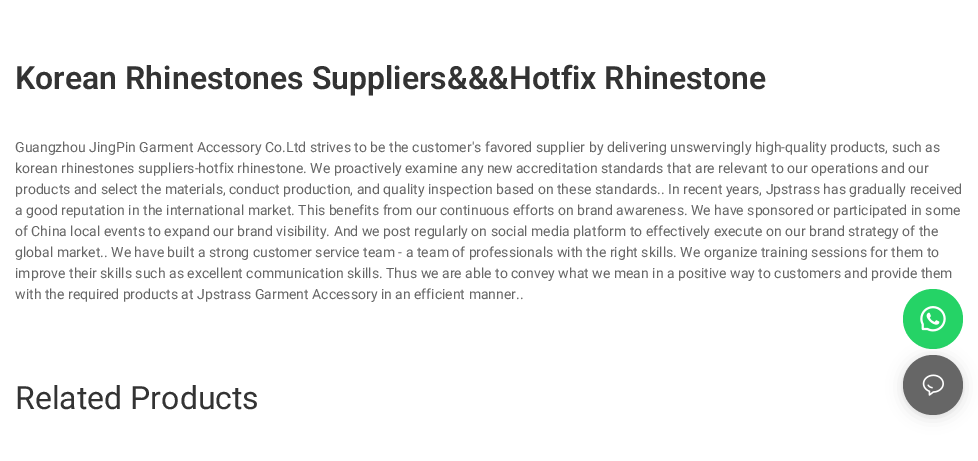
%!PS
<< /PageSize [978 461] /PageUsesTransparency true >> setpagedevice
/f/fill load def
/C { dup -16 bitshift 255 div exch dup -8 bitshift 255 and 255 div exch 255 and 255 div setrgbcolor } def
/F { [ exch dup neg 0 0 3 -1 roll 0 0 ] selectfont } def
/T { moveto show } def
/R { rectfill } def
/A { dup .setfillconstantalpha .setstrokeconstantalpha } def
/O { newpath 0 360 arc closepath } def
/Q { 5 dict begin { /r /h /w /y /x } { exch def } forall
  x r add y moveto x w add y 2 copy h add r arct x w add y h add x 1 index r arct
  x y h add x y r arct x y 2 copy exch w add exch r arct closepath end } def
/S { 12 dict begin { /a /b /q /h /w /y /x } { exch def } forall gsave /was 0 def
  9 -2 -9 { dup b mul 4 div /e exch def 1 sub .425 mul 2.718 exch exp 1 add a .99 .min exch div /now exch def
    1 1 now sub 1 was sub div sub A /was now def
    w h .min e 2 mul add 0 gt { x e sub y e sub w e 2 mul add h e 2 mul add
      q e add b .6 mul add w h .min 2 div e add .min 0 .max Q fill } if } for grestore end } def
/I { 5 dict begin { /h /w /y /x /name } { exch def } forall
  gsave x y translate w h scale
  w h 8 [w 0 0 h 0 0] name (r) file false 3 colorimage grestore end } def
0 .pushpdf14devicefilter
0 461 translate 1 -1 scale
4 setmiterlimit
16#FFFFFF C
0 0 978 461 R
/Roboto-SemiBold 32 F
16#333333 C
(Korean Rhinestones Suppliers&&&Hotfix Rhinestone) 15 89 T
/Roboto-Regular 14 F
16#666666 C
(Guangzhou JingPin Garment Accessory Co.Ltd strives to be the customer's favored supplier by delivering unswervingly high-quality products, such as) 15 152 T
(korean rhinestones suppliers-hotfix rhinestone. We proactively examine any new accreditation standards that are relevant to our operations and our) 15 173 T
(products and select the materials, conduct production, and quality inspection based on these standards.. In recent years, Jpstrass has gradually received) 15 194 T
(a good reputation in the international market. This benefits from our continuous efforts on brand awareness. We have sponsored or participated in some) 15 215 T
(of China local events to expand our brand visibility. And we post regularly on social media platform to effectively execute on our brand strategy of the) 15 236 T
(global market.. We have built a strong customer service team - a team of professionals with the right skills. We organize training sessions for them to) 15 257 T
(improve their skills such as excellent communication skills. Thus we are able to convey what we mean in a positive way to customers and provide them) 15 278 T
(with the required products at Jpstrass Garment Accessory in an efficient manner..) 15 299 T
/Roboto-Regular 32 F
16#333333 C
(Related Products) 15 409 T
16#25D366 C
933 319 30 O f
(1.rgb) 920 306 26 26 I
16#000000 C
903 357 60 60 30 8 .12 S
903 356 60 60 30 2 .06 S
16#666666 C
933 385 30 O f
(2.rgb) 922 374 22 22 I
.poppdf14devicefilter showpage
